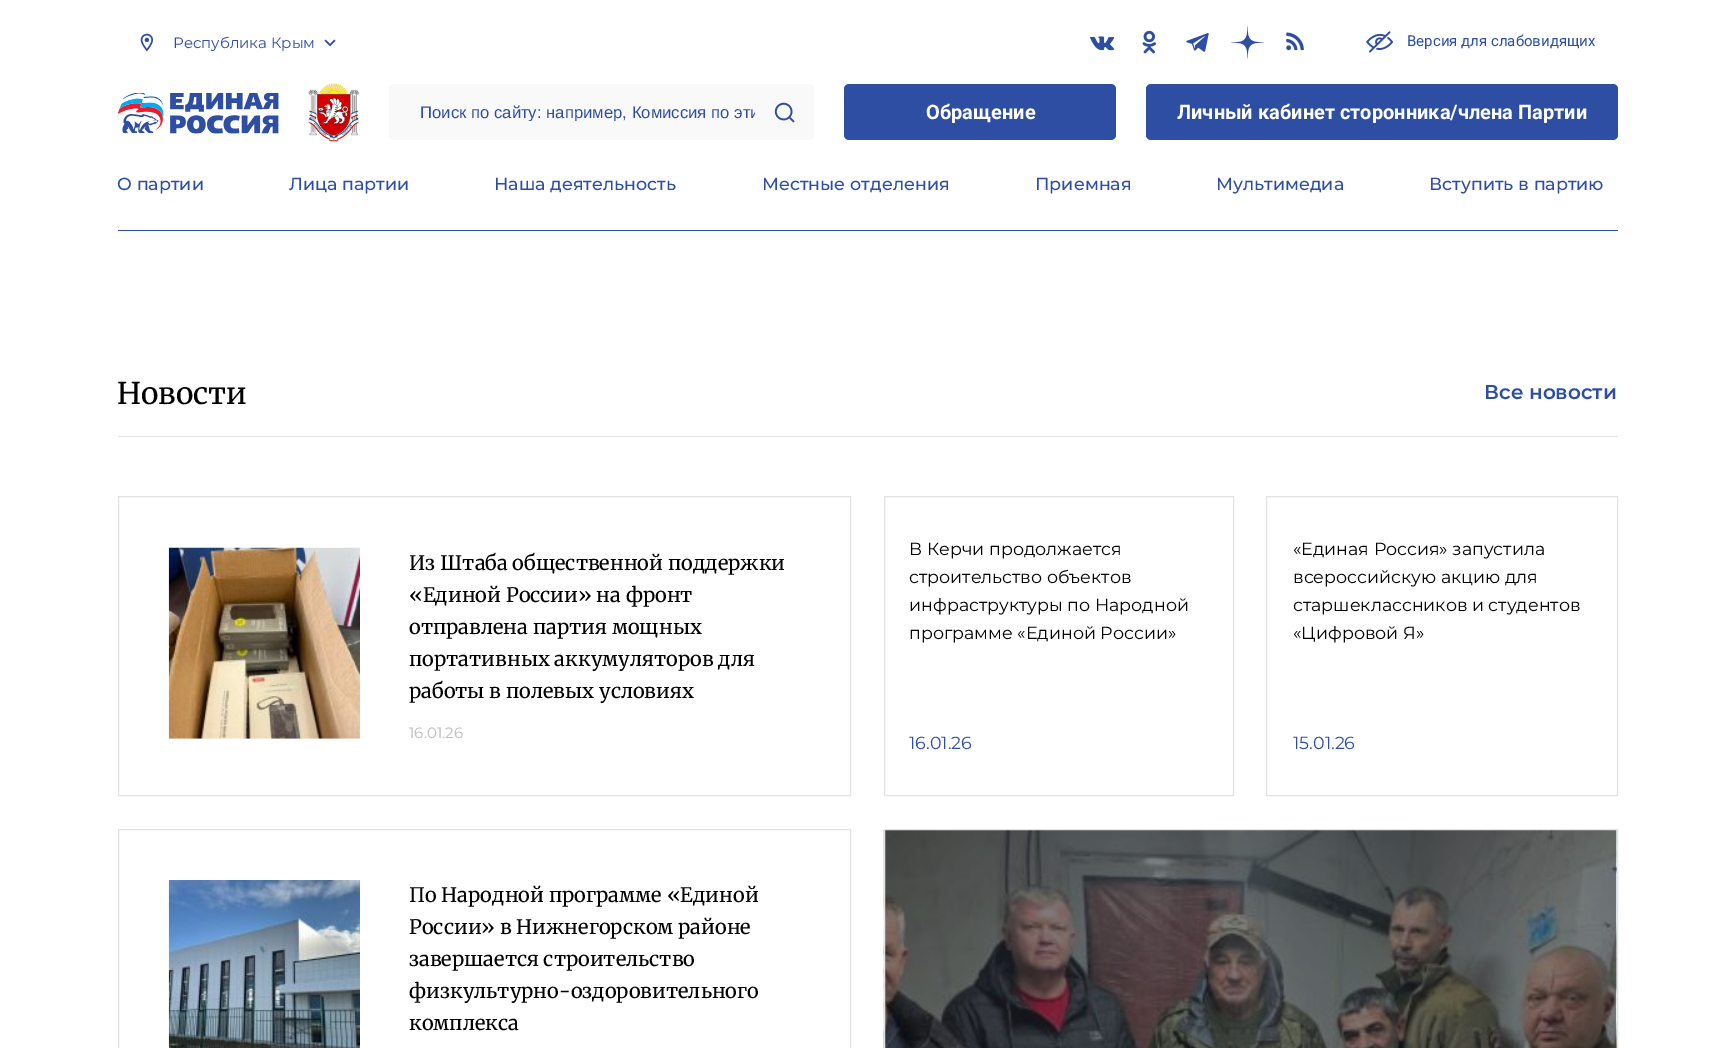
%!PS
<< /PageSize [1733 1048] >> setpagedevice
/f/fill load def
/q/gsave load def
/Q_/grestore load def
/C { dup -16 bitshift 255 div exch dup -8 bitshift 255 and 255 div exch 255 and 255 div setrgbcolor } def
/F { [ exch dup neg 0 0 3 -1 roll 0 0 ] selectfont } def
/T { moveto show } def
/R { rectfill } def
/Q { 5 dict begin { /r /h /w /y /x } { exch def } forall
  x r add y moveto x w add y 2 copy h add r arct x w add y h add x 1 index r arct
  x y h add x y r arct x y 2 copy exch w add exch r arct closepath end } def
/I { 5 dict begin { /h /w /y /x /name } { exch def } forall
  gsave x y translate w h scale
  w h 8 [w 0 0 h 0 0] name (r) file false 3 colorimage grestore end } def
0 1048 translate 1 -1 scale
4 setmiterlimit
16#FFFFFF C
0 0 1733 1048 R
(1.rgb) 140 33 14 19 I
/Montserrat-Regular 15 F
16#2E4EA4 C
(Республика Крым) 173 48 T
(2.rgb) 324 39 12 8 I
(3.rgb) 1090 36 25 15 I
(4.rgb) 1142 30 14 24 I
(5.rgb) 1186 33 23 19 I
(6.rgb) 1231 26 33 33 I
(7.rgb) 1286 32 18 19 I
(8.rgb) 1366 31 28 22 I
/Roboto-Regular 15 F
(Версия для слабовидящих) 1407 46 T
(9.rgb) 118 93 161 41 I
(10.rgb) 308 83 51 59 I
16#F9F9F9 C
389 84 425 56 5 Q f
q
420 103 335 18 rectclip
/LiberationSans-Regular 16.7 F
16#2E4EA4 C
(Поиск по сайту: например, Комиссия по эти) 420 118 T
Q_
(11.rgb) 774 102 21 21 I
16#2E4EA4 C
844 84 272 56 5 Q f
/Roboto-Bold 20 F
16#FFFFFF C
(Обращение) 926 119 T
16#2E4EA4 C
1146 84 472 56 5 Q f
16#FFFFFF C
(Личный кабинет сторонника/члена Партии) 1177 119 T
16#2E4EA4 C
118 230 1500 1 R
/Montserrat-Medium 17.5 F
(О партии) 117 190 T
(Лица партии) 289 190 T
(Наша деятельность) 494 190 T
(Местные отделения) 762 190 T
(Приемная) 1035 190 T
(Мультимедиа) 1216 190 T
(Вступить в партию) 1429 190 T
16#E3E3E3 C
118 436 1500 1 R
/Merriweather-Regular 30 F
16#000000 C
(Новости) 117 404 T
/Montserrat-SemiBold 20 F
16#2E4EA4 C
(Все новости) 1484 399 T
16#E3E3E3 C
118.5 496.5 732 299 rectstroke
(12.rgb) 168 547 192 192 I
/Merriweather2-Regular 20 F
16#000000 C
(Из Штаба общественной поддержки) 409 570 T
(«Единой России» на фронт) 409 602 T
(отправлена партия мощных) 409 634 T
(портативных аккумуляторов для) 409 666 T
(работы в полевых условиях) 409 698 T
/Montserrat-Regular 15 F
16#BDBDBD C
(16.01.26) 409 738 T
16#E3E3E3 C
884.5 496.5 349 299 rectstroke
/Montserrat-Regular 17.5 F
16#000000 C
(В Керчи продолжается) 909 555 T
(строительство объектов) 909 583 T
(инфраструктуры по Народной) 909 611 T
(программе «Единой России») 909 639 T
16#2E4EA4 C
(16.01.26) 909 749 T
16#E3E3E3 C
1266.5 496.5 351 299 rectstroke
16#000000 C
(«Единая Россия» запустила) 1293 555 T
(всероссийскую акцию для) 1293 583 T
(старшеклассников и студентов) 1293 611 T
(«Цифровой Я») 1293 639 T
16#2E4EA4 C
(15.01.26) 1293 749 T
16#E3E3E3 C
118.5 829.5 732 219 rectstroke
(13.rgb) 168 880 192 168 I
/Merriweather2-Regular 20 F
16#000000 C
(По Народной программе «Единой) 409 902 T
(России» в Нижнегорском районе) 409 934 T
(завершается строительство) 409 966 T
(физкультурно-оздоровительного) 409 998 T
(комплекса) 409 1030 T
(14.rgb) 883 830 734 218 I
16#E3E3E3 C
884.5 829.5 733 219 rectstroke
showpage
